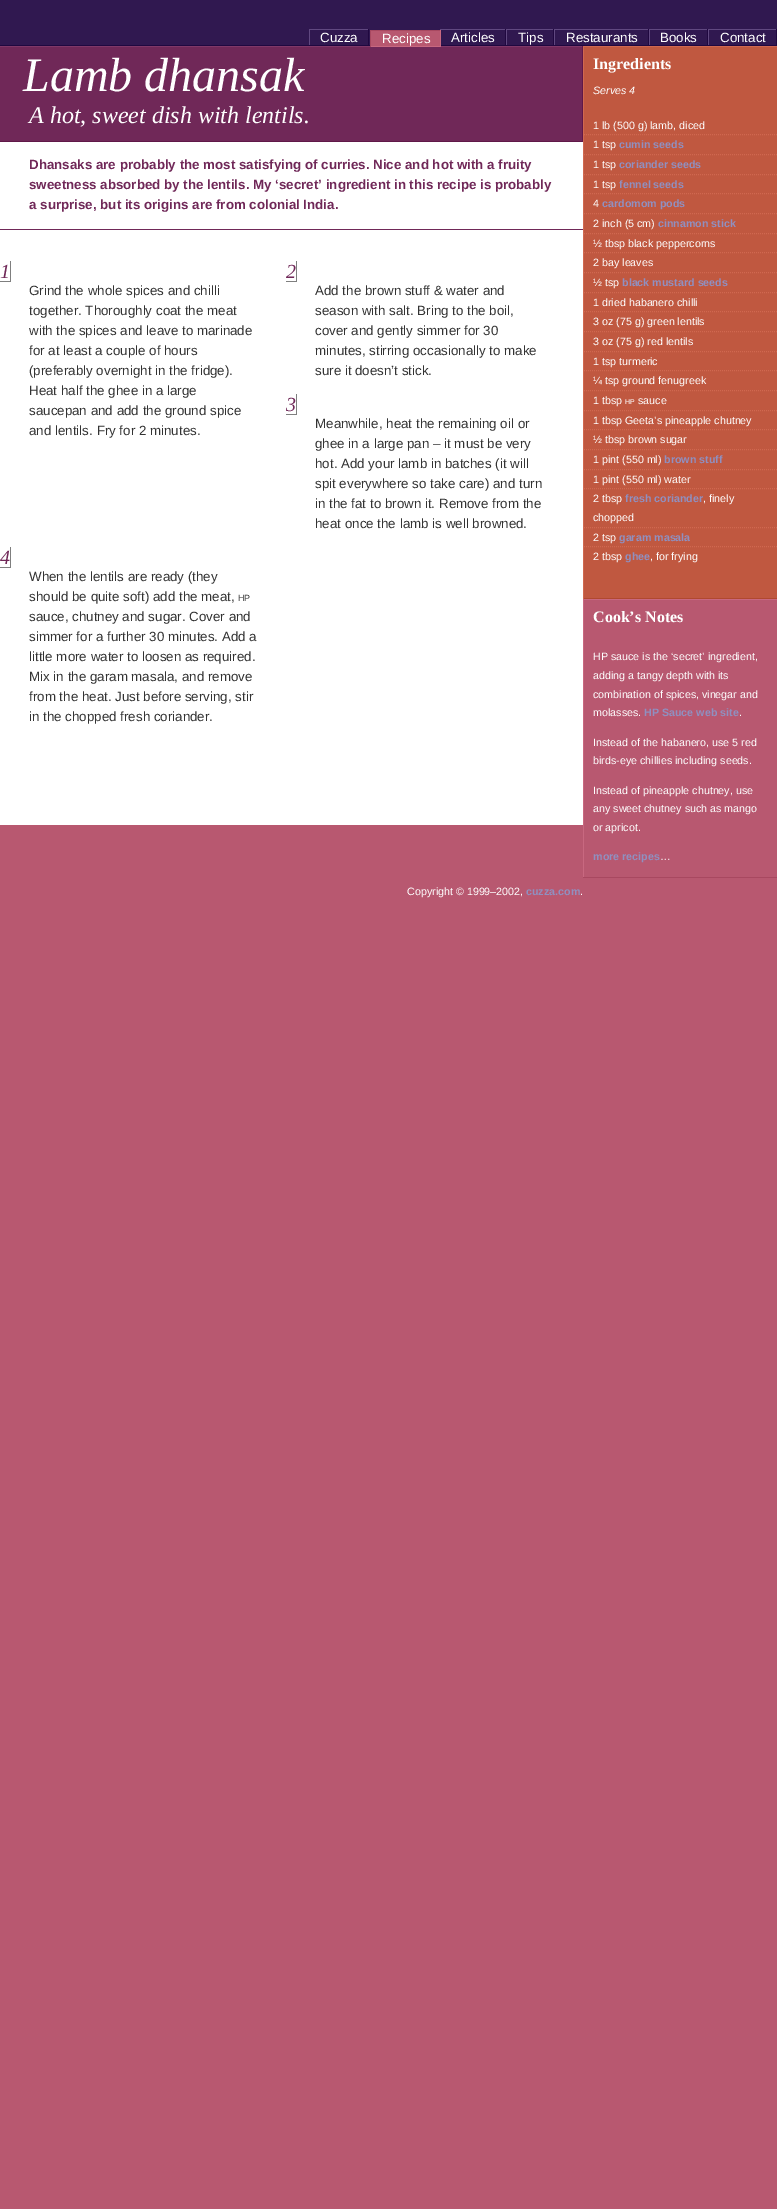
%!PS
<< /PageSize [777 2209] >> setpagedevice
/m/moveto load def
/l/rlineto load def
/s/stroke load def
/C { dup -16 bitshift 255 div exch dup -8 bitshift 255 and 255 div exch 255 and 255 div setrgbcolor } def
/F { [ exch dup neg 0 0 3 -1 roll 0 0 ] selectfont } def
/T { moveto show } def
/R { rectfill } def
0 2209 translate 1 -1 scale
4 setmiterlimit
16#B85870 C
0 0 777 2209 R
16#301850 C
0 0 777 45 R
16#200840 C
0 45 777 1 R
/LiberationSans-Regular 13.35 F
16#FFFFFF C
(Cuzza) 320 42 T
16#604880 C
309 29 60 1 R
16#200840 C
368 29 1 16 R
16#604880 C
309 29 1 16 R
16#B85870 C
371 31 69 15 R
16#FFFFFF C
(Recipes) 382 43 T
16#A84860 C
370 30 71 1 R
16#803868 C
0 46 583 1 R
16#C86880 C
440 30 1 17 R
370 46 71 1 R
16#A84860 C
370 30 1 17 R
16#FFFFFF C
(Articles) 451 42 T
16#604880 C
440 29 337 1 R
16#200840 C
505 29 1 16 R
16#FFFFFF C
(Tips) 518 42 T
16#200840 C
553 29 1 16 R
16#604880 C
506 29 1 16 R
16#FFFFFF C
(Restaurants) 566 42 T
16#200840 C
648 29 1 16 R
16#604880 C
554 29 1 16 R
16#FFFFFF C
(Books) 660 42 T
16#200840 C
707 29 1 16 R
16#604880 C
649 29 1 16 R
16#FFFFFF C
(Contact) 720 42 T
16#200840 C
776 29 1 16 R
16#604880 C
708 29 1 16 R
16#FFFFFF C
0 142 583 683 R
16#702858 C
0 47 582 94 R
16#601848 C
582 46 1 96 R
0 141 583 1 R
/LiberationSerif-Italic 48 F
16#FFFFFF C
(Lamb dhansak) 23 91 T
/LiberationSerif-Italic 24 F
(A hot, sweet dish with lentils.) 29 123 T
16#702858 C
0 229 583 1 R
/LiberationSans-Bold 13.35 F
(Dhansaks are probably the most satisfying of curries. Nice and hot with a fruity) 29 169 T
(sweetness absorbed by the lentils. My ‘secret’ ingredient in this recipe is probably) 29 189 T
(a surprise, but its origins are from colonial India.) 29 209 T
16#7F7F7F C
10 261 1 21 R
0 281 11 1 R
/LiberationSerif-Italic 20 F
16#702858 C
(1) 0 278 T
/LiberationSans-Regular 13.35 F
16#333333 C
(Grind the whole spices and chilli) 29 295 T
(together. Thoroughly coat the meat) 29 315 T
(with the spices and leave to marinade) 29 335 T
(for at least a couple of hours) 29 355 T
(\(preferably overnight in the fridge\).) 29 375 T
(Heat half the ghee in a large) 29 395 T
(saucepan and add the ground spice) 29 415 T
(and lentils. Fry for 2 minutes.) 29 435 T
16#7F7F7F C
296 261 1 21 R
286 281 11 1 R
/LiberationSerif-Italic 20 F
16#702858 C
(2) 286 278 T
/LiberationSans-Regular 13.35 F
16#333333 C
(Add the brown stuff & water and) 315 295 T
(season with salt. Bring to the boil,) 315 315 T
(cover and gently simmer for 30) 315 335 T
(minutes, stirring occasionally to make) 315 355 T
(sure it doesn’t stick.) 315 375 T
16#7F7F7F C
296 394 1 21 R
286 414 11 1 R
/LiberationSerif-Italic 20 F
16#702858 C
(3) 286 411 T
/LiberationSans-Regular 13.35 F
16#333333 C
(Meanwhile, heat the remaining oil or) 315 428 T
(ghee in a large pan – it must be very) 315 448 T
(hot. Add your lamb in batches \(it will) 315 468 T
(spit everywhere so take care\) and turn) 315 488 T
(in the fat to brown it. Remove from the) 315 508 T
(heat once the lamb is well browned.) 315 528 T
16#7F7F7F C
10 547 1 21 R
0 567 11 1 R
/LiberationSerif-Italic 20 F
16#702858 C
(4) 0 564 T
/LiberationSans-Regular 13.35 F
16#333333 C
(When the lentils are ready \(they) 29 581 T
(should be quite soft\) add the meat,) 29 601 T
/LiberationSans-Regular 9 F
(HP) 238 601 T
/LiberationSans-Regular 13.35 F
(sauce, chutney and sugar. Cover and) 29 621 T
(simmer for a further 30 minutes. Add a) 29 641 T
(little more water to loosen as required.) 29 661 T
(Mix in the garam masala, and remove) 29 681 T
(from the heat. Just before serving, stir) 29 701 T
(in the chopped fresh coriander.) 29 721 T
16#C05840 C
584 47 193 551 R
16#D06850 C
583 46 194 1 R
16#B04830 C
583 598 194 1 R
16#D06850 C
583 46 1 553 R
/LiberationSerif-Bold 16 F
16#FFFFFF C
(Ingredients) 593 69 T
/LiberationSans-Italic 10.7 F
(Serves 4) 593 94 T
/LiberationSans-Regular 10.7 F
(1 lb \(500 g\) lamb, diced) 593 129 T
16#D06850 C
[1 1] 0 setdash
584 134.5 m 193 0 l s
16#FFFFFF C
(1 tsp) 593 148 T
/LiberationSans-Bold 10.7 F
16#9090C0 C
(cumin seeds) 619 148 T
16#D06850 C
584 154.5 m 193 0 l s
/LiberationSans-Regular 10.7 F
16#FFFFFF C
(1 tsp) 593 168 T
/LiberationSans-Bold 10.7 F
16#9090C0 C
(coriander seeds) 619 168 T
16#D06850 C
584 174.5 m 193 0 l s
/LiberationSans-Regular 10.7 F
16#FFFFFF C
(1 tsp) 593 188 T
/LiberationSans-Bold 10.7 F
16#9090C0 C
(fennel seeds) 619 188 T
16#D06850 C
584 193.5 m 193 0 l s
/LiberationSans-Regular 10.7 F
16#FFFFFF C
(4) 593 207 T
/LiberationSans-Bold 10.7 F
16#9090C0 C
(cardomom pods) 602 207 T
16#D06850 C
584 213.5 m 193 0 l s
/LiberationSans-Regular 10.7 F
16#FFFFFF C
(2 inch \(5 cm\)) 593 227 T
/LiberationSans-Bold 10.7 F
16#9090C0 C
(cinnamon stick) 658 227 T
16#D06850 C
584 233.5 m 193 0 l s
/LiberationSans-Regular 10.7 F
16#FFFFFF C
(½ tbsp black peppercorns) 593 247 T
16#D06850 C
584 252.5 m 193 0 l s
16#FFFFFF C
(2 bay leaves) 593 266 T
16#D06850 C
584 272.5 m 193 0 l s
16#FFFFFF C
(½ tsp) 593 286 T
/LiberationSans-Bold 10.7 F
16#9090C0 C
(black mustard seeds) 622 286 T
16#D06850 C
584 292.5 m 193 0 l s
/LiberationSans-Regular 10.7 F
16#FFFFFF C
(1 dried habanero chilli) 593 306 T
16#D06850 C
584 311.5 m 193 0 l s
16#FFFFFF C
(3 oz \(75 g\) green lentils) 593 325 T
16#D06850 C
584 331.5 m 193 0 l s
16#FFFFFF C
(3 oz \(75 g\) red lentils) 593 345 T
16#D06850 C
584 351.5 m 193 0 l s
16#FFFFFF C
(1 tsp turmeric) 593 365 T
16#D06850 C
584 370.5 m 193 0 l s
16#FFFFFF C
(¼ tsp ground fenugreek) 593 384 T
16#D06850 C
584 390.5 m 193 0 l s
16#FFFFFF C
(1 tbsp) 593 404 T
/LiberationSans-Regular 7 F
(HP) 625 404 T
/LiberationSans-Regular 10.7 F
(sauce) 638 404 T
16#D06850 C
584 410.5 m 193 0 l s
16#FFFFFF C
(1 tbsp Geeta’s pineapple chutney) 593 424 T
16#D06850 C
584 429.5 m 193 0 l s
16#FFFFFF C
(½ tbsp brown sugar) 593 443 T
16#D06850 C
584 449.5 m 193 0 l s
16#FFFFFF C
(1 pint \(550 ml\)) 593 463 T
/LiberationSans-Bold 10.7 F
16#9090C0 C
(brown stuff) 664 463 T
16#D06850 C
584 469.5 m 193 0 l s
/LiberationSans-Regular 10.7 F
16#FFFFFF C
(1 pint \(550 ml\) water) 593 483 T
16#D06850 C
584 488.5 m 193 0 l s
16#FFFFFF C
(2 tbsp) 593 502 T
/LiberationSans-Bold 10.7 F
16#9090C0 C
(fresh coriander) 625 502 T
/LiberationSans-Regular 10.7 F
16#FFFFFF C
(, finely) 703 502 T
(chopped) 593 521 T
16#D06850 C
584 527.5 m 193 0 l s
16#FFFFFF C
(2 tsp) 593 541 T
/LiberationSans-Bold 10.7 F
16#9090C0 C
(garam masala) 619 541 T
16#D06850 C
584 546.5 m 193 0 l s
/LiberationSans-Regular 10.7 F
16#FFFFFF C
(2 tbsp) 593 560 T
/LiberationSans-Bold 10.7 F
16#9090C0 C
(ghee) 625 560 T
/LiberationSans-Regular 10.7 F
16#FFFFFF C
(, for frying) 650 560 T
16#C86880 C
583 599 194 1 R
583 599 1 278 R
/LiberationSerif-Bold 16 F
16#FFFFFF C
(Cook’s Notes) 593 622 T
/LiberationSans-Regular 10.7 F
(HP sauce is the ‘secret’ ingredient,) 593 660 T
(adding a tangy depth with its) 593 679 T
(combination of spices, vinegar and) 593 698 T
(molasses.) 593 716 T
/LiberationSans-Bold 10.7 F
16#9090C0 C
(HP Sauce web site) 644 716 T
/LiberationSans-Regular 10.7 F
16#FFFFFF C
(.) 739 716 T
(Instead of the habanero, use 5 red) 593 746 T
(birds-eye chillies including seeds.) 593 764 T
(Instead of pineapple chutney, use) 593 794 T
(any sweet chutney such as mango) 593 812 T
(or apricot.) 593 831 T
/LiberationSans-Bold 10.7 F
16#9090C0 C
(more recipes) 593 860 T
/LiberationSans-Regular 10.7 F
16#FFFFFF C
(…) 660 860 T
16#A84860 C
583 877 194 1 R
16#FFFFFF C
(Copyright © 1999–2002,) 407 895 T
/LiberationSans-Bold 10.7 F
16#9090C0 C
(cuzza.com) 526 895 T
/LiberationSans-Regular 10.7 F
16#FFFFFF C
(.) 580 895 T
showpage
